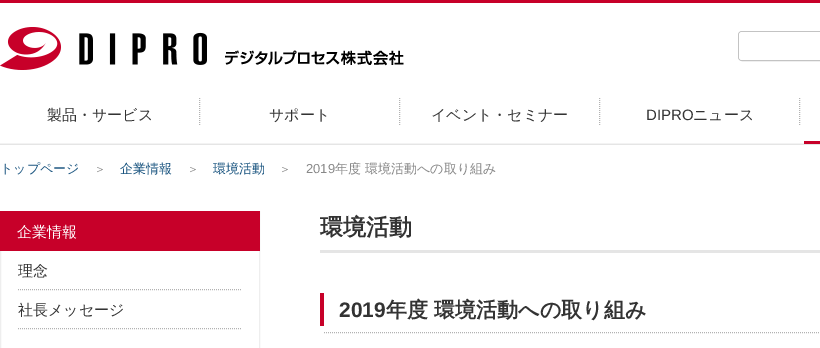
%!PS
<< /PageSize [820 348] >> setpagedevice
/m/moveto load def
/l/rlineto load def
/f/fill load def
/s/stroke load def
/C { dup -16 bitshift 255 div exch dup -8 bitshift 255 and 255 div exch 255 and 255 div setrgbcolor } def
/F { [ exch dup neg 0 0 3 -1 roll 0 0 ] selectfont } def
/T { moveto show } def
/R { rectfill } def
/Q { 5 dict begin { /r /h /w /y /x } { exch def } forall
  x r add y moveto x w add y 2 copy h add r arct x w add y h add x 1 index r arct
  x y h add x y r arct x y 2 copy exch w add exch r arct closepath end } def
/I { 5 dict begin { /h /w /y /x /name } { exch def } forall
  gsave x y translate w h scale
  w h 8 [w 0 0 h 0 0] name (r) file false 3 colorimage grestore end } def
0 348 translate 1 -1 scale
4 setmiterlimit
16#FFFFFF C
0 0 820 348 R
16#C70029 C
0 0 820 3 R
16#E5E5E5 C
0 144 820 1 R
(1.rgb) 0 27 404 43 I
16#C3C3C3 C
738.5 31.5 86 29 3.5 Q s
16#FFFFFF C
739 32 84 28 3 Q f
16#F3F3F3 C
0 143 804 1 R
/WenQuanYiZenHei-Medium 15 F
16#333333 C
(製品・サービス) 47 120 T
16#B2B2B2 C
[1 1] 0 setdash
199.5 98 m 0 28 l s
16#333333 C
(サポート) 269 120 T
16#B2B2B2 C
399.5 98 m 0 28 l s
16#333333 C
(イベント・セミナー) 431 120 T
16#B2B2B2 C
599.5 98 m 0 28 l s
/LiberationSans-Regular 15 F
16#333333 C
(DIPRO) 646 120 T
/WenQuanYiZenHei-Medium 15 F
(ニュース) 693 120 T
16#B2B2B2 C
799.5 98 m 0 28 l s
16#C70029 C
804 141 16 3 R
/WenQuanYiZenHei-Medium 13 F
16#19547F C
(トップページ) 0 173 T
/WenQuanYiZenHei-Medium 12 F
16#888888 C
(＞) 94 173 T
/WenQuanYiZenHei-Medium 13 F
16#19547F C
(企業情報) 120 173 T
/WenQuanYiZenHei-Medium 12 F
16#888888 C
(＞) 187 173 T
/WenQuanYiZenHei-Medium 13 F
16#19547F C
(環境活動) 213 173 T
/WenQuanYiZenHei-Medium 12 F
16#888888 C
(＞) 279 173 T
/LiberationSans-Regular 13 F
(2019) 306 173 T
/WenQuanYiZenHei-Medium 13 F
(年度 環境活動への取り組み) 335 173 T
16#EEEEEE C
[] 0 setdash
.5 211.5 259 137 rectstroke
16#C70029 C
0 211 260 40 R
/WenQuanYiZenHei-Medium 15 F
16#FFFFFF C
(企業情報) 17 237 T
16#333333 C
(理念) 18 276 T
16#B2B2B2 C
[1 1] 0 setdash
18 289.5 m 224 0 l s
16#333333 C
(社長メッセージ) 18 315 T
16#B2B2B2 C
18 328.5 m 224 0 l s
16#E5E5E5 C
320 250 500 3 R
/WenQuanYiZenHei-Bold 23 F
16#333333 C
(環境活動) 320 235 T
16#C70029 C
320 293 4 33 R
/LiberationSans-Bold 21 F
16#333333 C
(2019) 339 317 T
/WenQuanYiZenHei-Bold 21 F
(年度 環境活動への取り組み) 386 317 T
16#B2B2B2 C
324 332.5 m 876 0 l s
showpage
